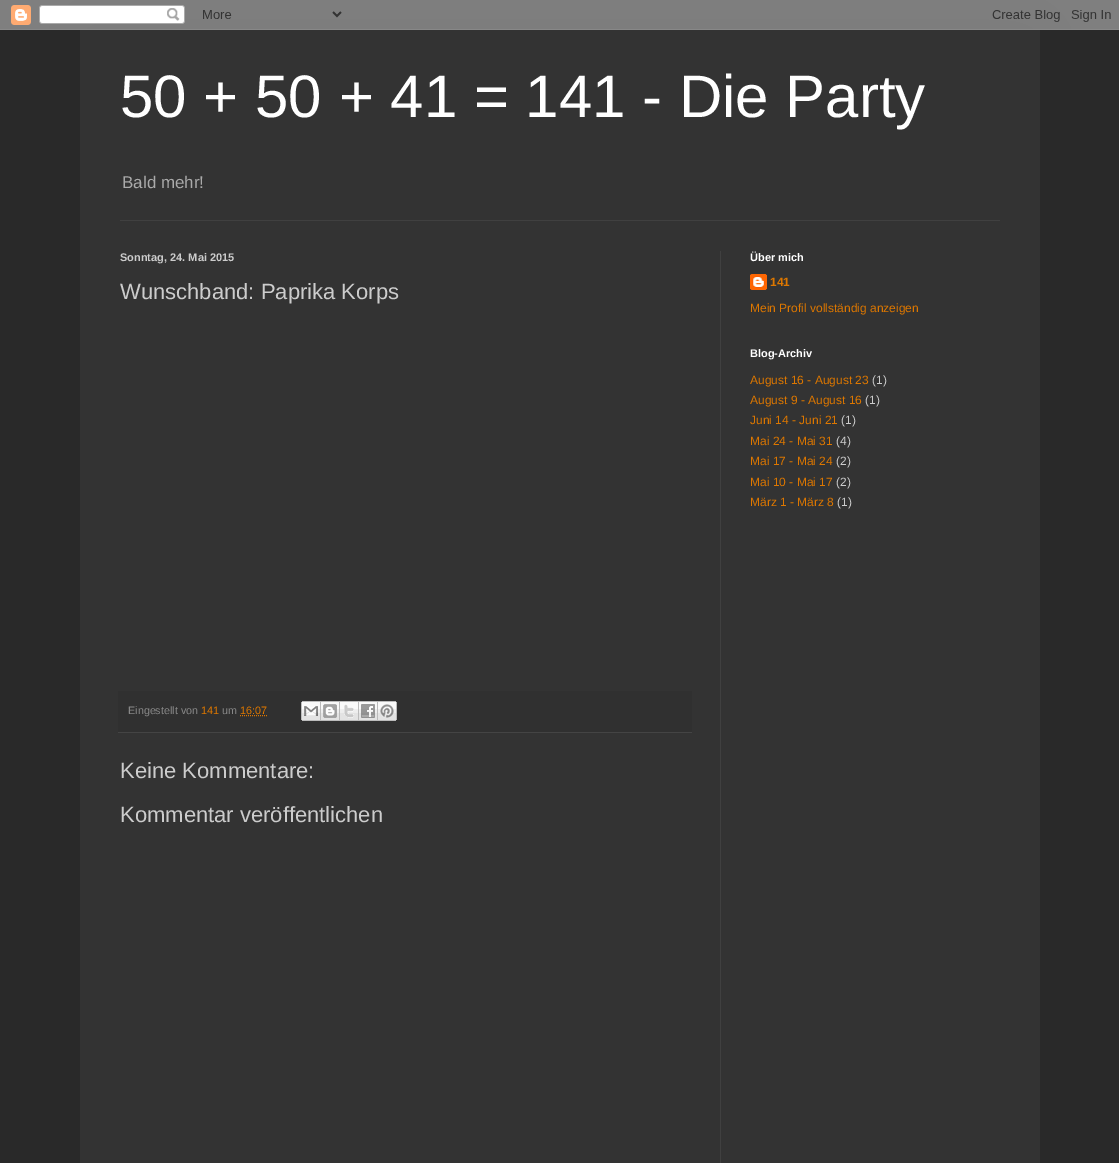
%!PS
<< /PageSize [1119 1163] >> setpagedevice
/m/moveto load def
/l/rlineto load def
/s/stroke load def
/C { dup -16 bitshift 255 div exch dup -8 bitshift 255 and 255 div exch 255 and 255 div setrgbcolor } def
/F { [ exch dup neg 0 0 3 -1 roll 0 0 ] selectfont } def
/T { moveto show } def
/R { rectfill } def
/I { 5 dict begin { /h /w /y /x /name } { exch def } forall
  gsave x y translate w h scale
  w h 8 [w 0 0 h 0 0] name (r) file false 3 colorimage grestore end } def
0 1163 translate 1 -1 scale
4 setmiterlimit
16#292929 C
0 0 1119 1163 R
(1.rgb) 0 0 1119 30 I
16#333333 C
80 30 960 1133 R
/LiberationSans-Regular 60 F
16#FFFFFF C
(50 + 50 + 41 = 141 - Die Party) 120 117 T
/LiberationSans-Regular 17 F
16#AAAAAA C
(Bald mehr!) 122 188 T
16#404040 C
120 220 880 1 R
/LiberationSans-Bold 11 F
16#CCCCCC C
(Sonntag, 24. Mai 2015) 120 261 T
/LiberationSans-Regular 22 F
(Wunschband: Paprika Korps) 120 299 T
16#303030 C
118 691 574 41 R
16#444444 C
118 732 574 1 R
/LiberationSans-Regular 10.75 F
16#888888 C
(Eingestellt von) 128 714 T
16#DD7700 C
(141) 201 714 T
16#888888 C
(um) 222 714 T
16#DD7700 C
(16:07) 240 714 T
[1 1] 0 setdash
240 715.5 m 27 0 l s
(2.rgb) 301 701 20 20 I
(3.rgb) 321 701 19 20 I
(4.rgb) 340 701 19 20 I
(5.rgb) 359 701 19 20 I
(6.rgb) 378 701 19 20 I
/LiberationSans-Regular 22 F
16#CCCCCC C
(Keine Kommentare:) 120 778 T
(Kommentar veröffentlichen) 120 822 T
/LiberationSans-Bold 11 F
16#FFFFFF C
(Über mich) 750 261 T
(7.rgb) 750 274 17 16 I
/LiberationSans-Bold 12 F
16#DD7700 C
(141) 770 286 T
/LiberationSans-Regular 12 F
(Mein Profil vollständig anzeigen) 750 312 T
/LiberationSans-Bold 11 F
16#FFFFFF C
(Blog-Archiv) 750 357 T
/LiberationSans-Regular 12 F
16#DD7700 C
(August 16 - August 23) 750 384 T
16#CCCCCC C
(\(1\)) 872 384 T
16#DD7700 C
(August 9 - August 16) 750 404 T
16#CCCCCC C
(\(1\)) 865 404 T
16#DD7700 C
(Juni 14 - Juni 21) 750 424 T
16#CCCCCC C
(\(1\)) 841 424 T
16#DD7700 C
(Mai 24 - Mai 31) 750 445 T
16#CCCCCC C
(\(4\)) 836 445 T
16#DD7700 C
(Mai 17 - Mai 24) 750 465 T
16#CCCCCC C
(\(2\)) 836 465 T
16#DD7700 C
(Mai 10 - Mai 17) 750 486 T
16#CCCCCC C
(\(2\)) 836 486 T
16#DD7700 C
(März 1 - März 8) 750 506 T
16#CCCCCC C
(\(1\)) 837 506 T
16#404040 C
720 251 1 912 R
showpage
